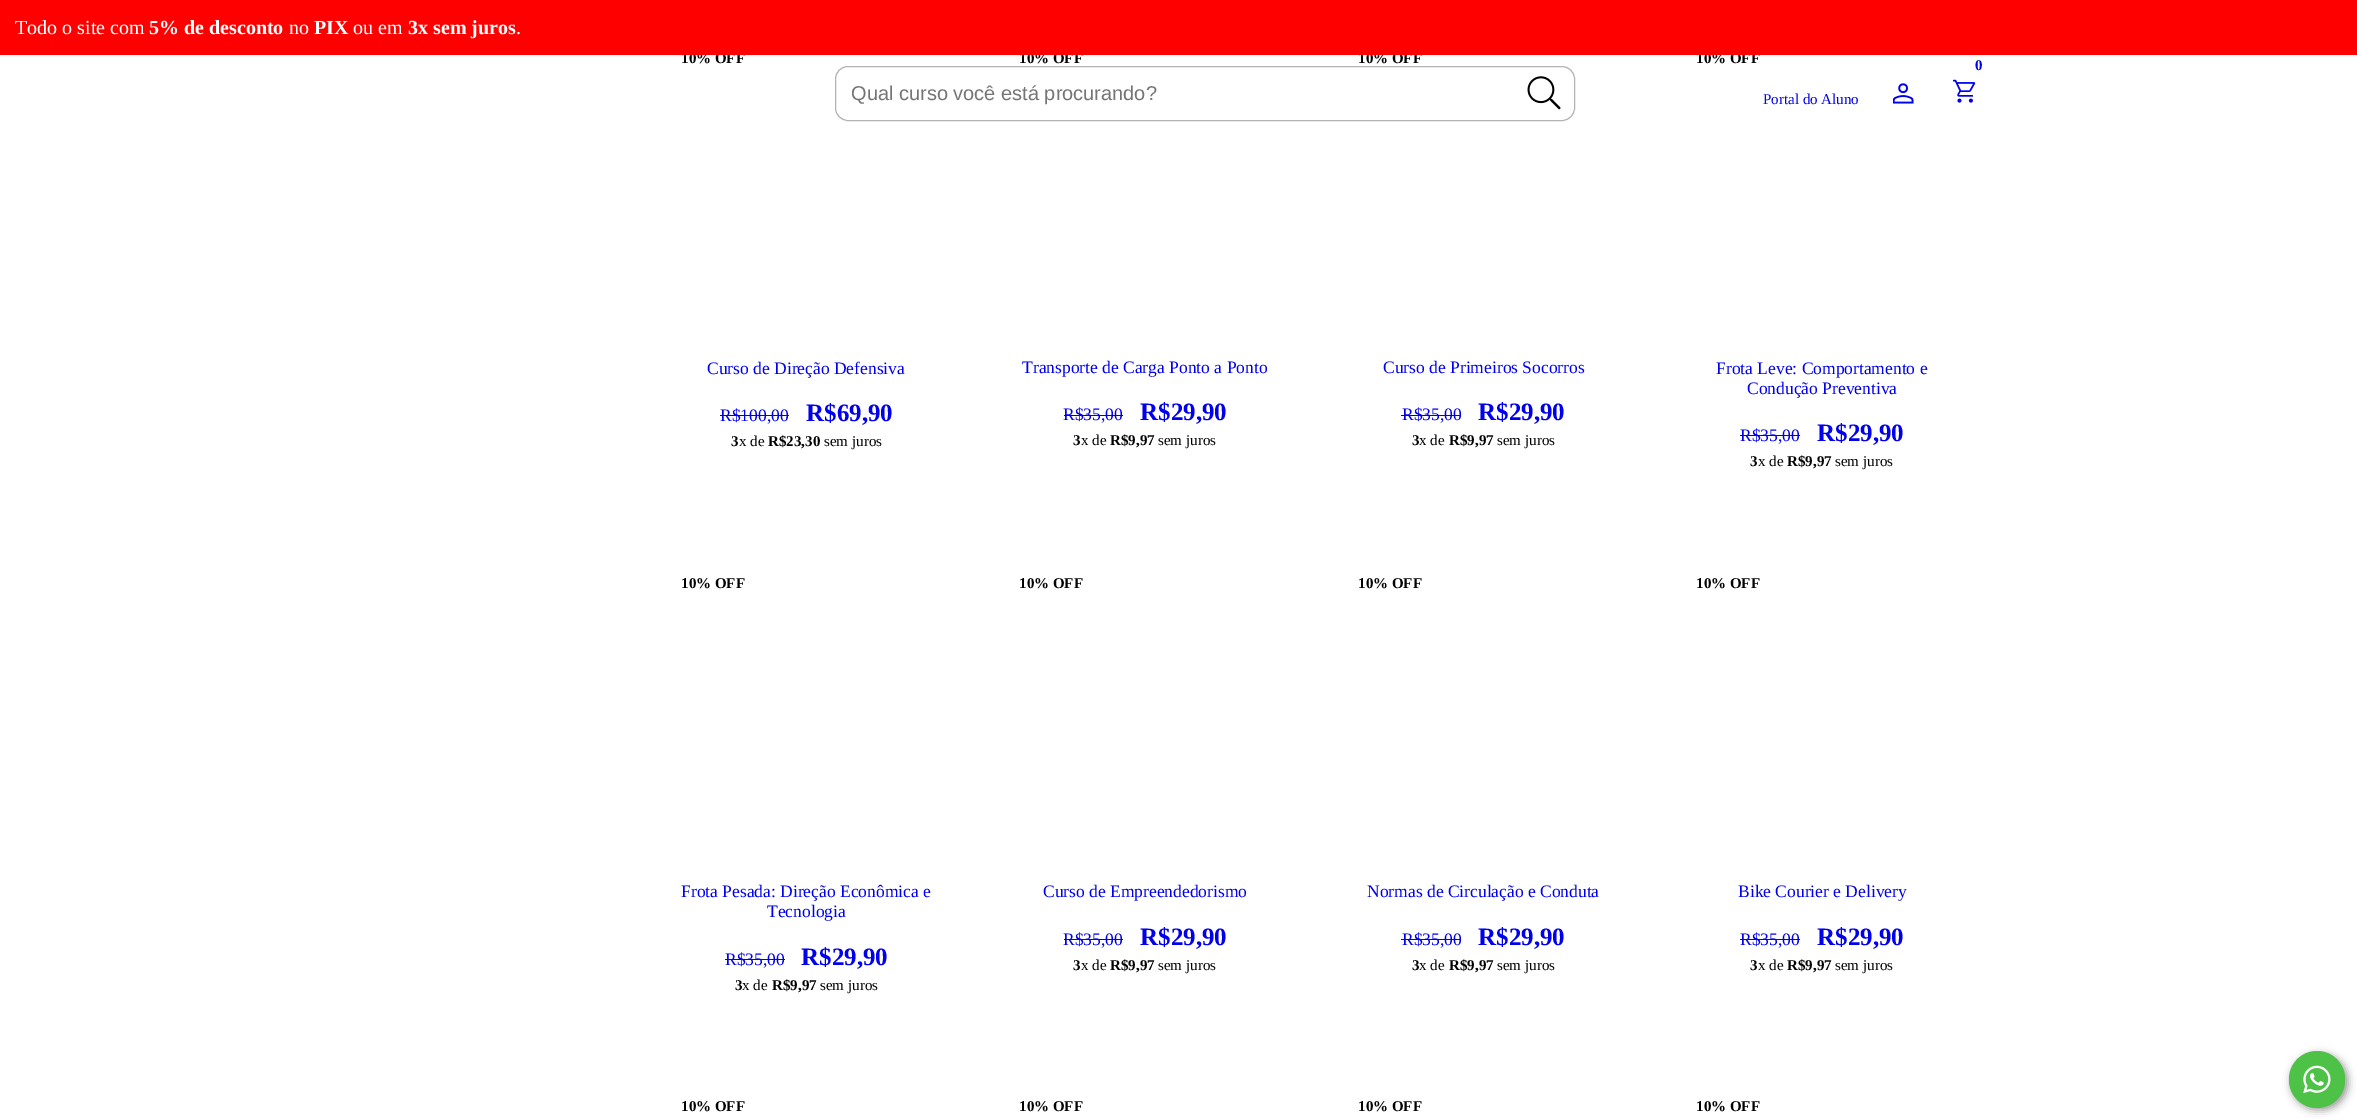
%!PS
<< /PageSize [2357 1119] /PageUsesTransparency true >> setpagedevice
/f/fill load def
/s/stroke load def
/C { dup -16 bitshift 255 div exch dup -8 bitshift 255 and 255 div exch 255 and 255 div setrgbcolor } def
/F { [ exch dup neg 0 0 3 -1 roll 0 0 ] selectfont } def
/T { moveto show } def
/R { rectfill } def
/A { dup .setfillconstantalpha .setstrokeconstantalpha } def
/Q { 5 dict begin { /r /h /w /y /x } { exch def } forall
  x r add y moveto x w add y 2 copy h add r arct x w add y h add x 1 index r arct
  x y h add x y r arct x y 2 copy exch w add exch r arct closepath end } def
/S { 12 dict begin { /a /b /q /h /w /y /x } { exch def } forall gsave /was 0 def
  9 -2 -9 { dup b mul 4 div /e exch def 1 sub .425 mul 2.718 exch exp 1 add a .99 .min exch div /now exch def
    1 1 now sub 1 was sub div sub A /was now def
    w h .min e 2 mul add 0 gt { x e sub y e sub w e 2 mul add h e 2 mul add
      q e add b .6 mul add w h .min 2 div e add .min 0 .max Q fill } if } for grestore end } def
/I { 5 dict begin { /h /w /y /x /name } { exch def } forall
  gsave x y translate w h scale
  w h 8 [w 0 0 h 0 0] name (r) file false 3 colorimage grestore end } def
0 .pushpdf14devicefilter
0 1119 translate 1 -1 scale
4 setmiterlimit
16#FFFFFF C
0 0 2357 1119 R
/LiberationSerif-Bold 15 F
16#000000 C
(10% OFF) 681 63 T
(10% OFF) 1019 63 T
(10% OFF) 1358 63 T
(10% OFF) 1696 63 T
16#FF0000 C
0 0 2357 55 R
/LiberationSerif-Regular 20 F
16#FFFFFF C
(Todo o site com) 15 34 T
/LiberationSerif-Bold 20 F
(5% de desconto) 149 34 T
/LiberationSerif-Regular 20 F
(no) 289 34 T
/LiberationSerif-Bold 20 F
(PIX) 314 34 T
/LiberationSerif-Regular 20 F
(ou em) 353 34 T
/LiberationSerif-Bold 20 F
(3x sem juros) 408 34 T
/LiberationSerif-Regular 20 F
(.) 516 34 T
16#B3B3B3 C
835.5 66.5 739 54 12.5 Q s
/LiberationSans-Regular 20 F
16#757575 C
(Qual curso você está procurando?) 851 100 T
(1.rgb) 1527 76 34 34 I
/LiberationSerif-Bold 15 F
16#0000EE C
(0) 1975 70 T
(2.rgb) 1953 79 23 24 I
/LiberationSerif-Regular 15 F
(Portal do Aluno) 1763 104 T
(3.rgb) 1893 83 21 21 I
/LiberationSerif-Regular 17.5 F
(Curso de Direção Defensiva) 707 374 T
(R$100,00) 720 421 T
720 415 69 1 R
/LiberationSerif-Bold 25 F
(R$69,90) 806 421 T
/LiberationSerif-Bold 15 F
16#000000 C
(3) 731 446 T
/LiberationSerif-Regular 15 F
(x de) 739 446 T
/LiberationSerif-Bold 15 F
(R$23,30) 768 446 T
/LiberationSerif-Regular 15 F
(sem juros) 824 446 T
/LiberationSerif-Regular 17.5 F
16#0000EE C
(Transporte de Carga Ponto a Ponto) 1022 373 T
(R$35,00) 1063 420 T
1064 415 59 1 R
/LiberationSerif-Bold 25 F
(R$29,90) 1140 420 T
/LiberationSerif-Bold 15 F
16#000000 C
(3) 1073 445 T
/LiberationSerif-Regular 15 F
(x de) 1081 445 T
/LiberationSerif-Bold 15 F
(R$9,97) 1110 445 T
/LiberationSerif-Regular 15 F
(sem juros) 1158 445 T
/LiberationSerif-Regular 17.5 F
16#0000EE C
(Curso de Primeiros Socorros) 1383 373 T
(R$35,00) 1402 420 T
1401 415 60 1 R
/LiberationSerif-Bold 25 F
(R$29,90) 1478 420 T
/LiberationSerif-Bold 15 F
16#000000 C
(3) 1412 445 T
/LiberationSerif-Regular 15 F
(x de) 1419 445 T
/LiberationSerif-Bold 15 F
(R$9,97) 1449 445 T
/LiberationSerif-Regular 15 F
(sem juros) 1497 445 T
/LiberationSerif-Regular 17.5 F
16#0000EE C
(Frota Leve: Comportamento e) 1716 374 T
(Condução Preventiva) 1747 394 T
(R$35,00) 1740 441 T
1740 435 60 1 R
/LiberationSerif-Bold 25 F
(R$29,90) 1817 441 T
/LiberationSerif-Bold 15 F
16#000000 C
(3) 1750 466 T
/LiberationSerif-Regular 15 F
(x de) 1758 466 T
/LiberationSerif-Bold 15 F
(R$9,97) 1787 466 T
/LiberationSerif-Regular 15 F
(sem juros) 1835 466 T
/LiberationSerif-Bold 15 F
(10% OFF) 681 588 T
/LiberationSerif-Regular 17.5 F
16#0000EE C
(Frota Pesada: Direção Econômica e) 681 897 T
(Tecnologia) 767 917 T
(R$35,00) 725 965 T
725 959 60 1 R
/LiberationSerif-Bold 25 F
(R$29,90) 801 965 T
/LiberationSerif-Bold 15 F
16#000000 C
(3) 735 990 T
/LiberationSerif-Regular 15 F
(x de) 742 990 T
/LiberationSerif-Bold 15 F
(R$9,97) 772 990 T
/LiberationSerif-Regular 15 F
(sem juros) 820 990 T
/LiberationSerif-Bold 15 F
(10% OFF) 1019 588 T
/LiberationSerif-Regular 17.5 F
16#0000EE C
(Curso de Empreendedorismo) 1043 897 T
(R$35,00) 1063 945 T
1064 939 59 1 R
/LiberationSerif-Bold 25 F
(R$29,90) 1140 945 T
/LiberationSerif-Bold 15 F
16#000000 C
(3) 1073 970 T
/LiberationSerif-Regular 15 F
(x de) 1081 970 T
/LiberationSerif-Bold 15 F
(R$9,97) 1110 970 T
/LiberationSerif-Regular 15 F
(sem juros) 1158 970 T
/LiberationSerif-Bold 15 F
(10% OFF) 1358 588 T
/LiberationSerif-Regular 17.5 F
16#0000EE C
(Normas de Circulação e Conduta) 1367 897 T
(R$35,00) 1402 945 T
1401 939 60 1 R
/LiberationSerif-Bold 25 F
(R$29,90) 1478 945 T
/LiberationSerif-Bold 15 F
16#000000 C
(3) 1412 970 T
/LiberationSerif-Regular 15 F
(x de) 1419 970 T
/LiberationSerif-Bold 15 F
(R$9,97) 1449 970 T
/LiberationSerif-Regular 15 F
(sem juros) 1497 970 T
/LiberationSerif-Bold 15 F
(10% OFF) 1696 588 T
/LiberationSerif-Regular 17.5 F
16#0000EE C
(Bike Courier e Delivery) 1738 897 T
(R$35,00) 1740 945 T
1740 939 60 1 R
/LiberationSerif-Bold 25 F
(R$29,90) 1817 945 T
/LiberationSerif-Bold 15 F
16#000000 C
(3) 1750 970 T
/LiberationSerif-Regular 15 F
(x de) 1758 970 T
/LiberationSerif-Bold 15 F
(R$9,97) 1787 970 T
/LiberationSerif-Regular 15 F
(sem juros) 1835 970 T
/LiberationSerif-Bold 15 F
(10% OFF) 681 1111 T
(10% OFF) 1019 1111 T
(10% OFF) 1358 1111 T
(10% OFF) 1696 1111 T
2291 1054 57 56 28 4 .4 S
16#4DC247 C
2289 1051 56 57 28 Q f
(4.rgb) 2303 1065 28 28 I
.poppdf14devicefilter showpage
